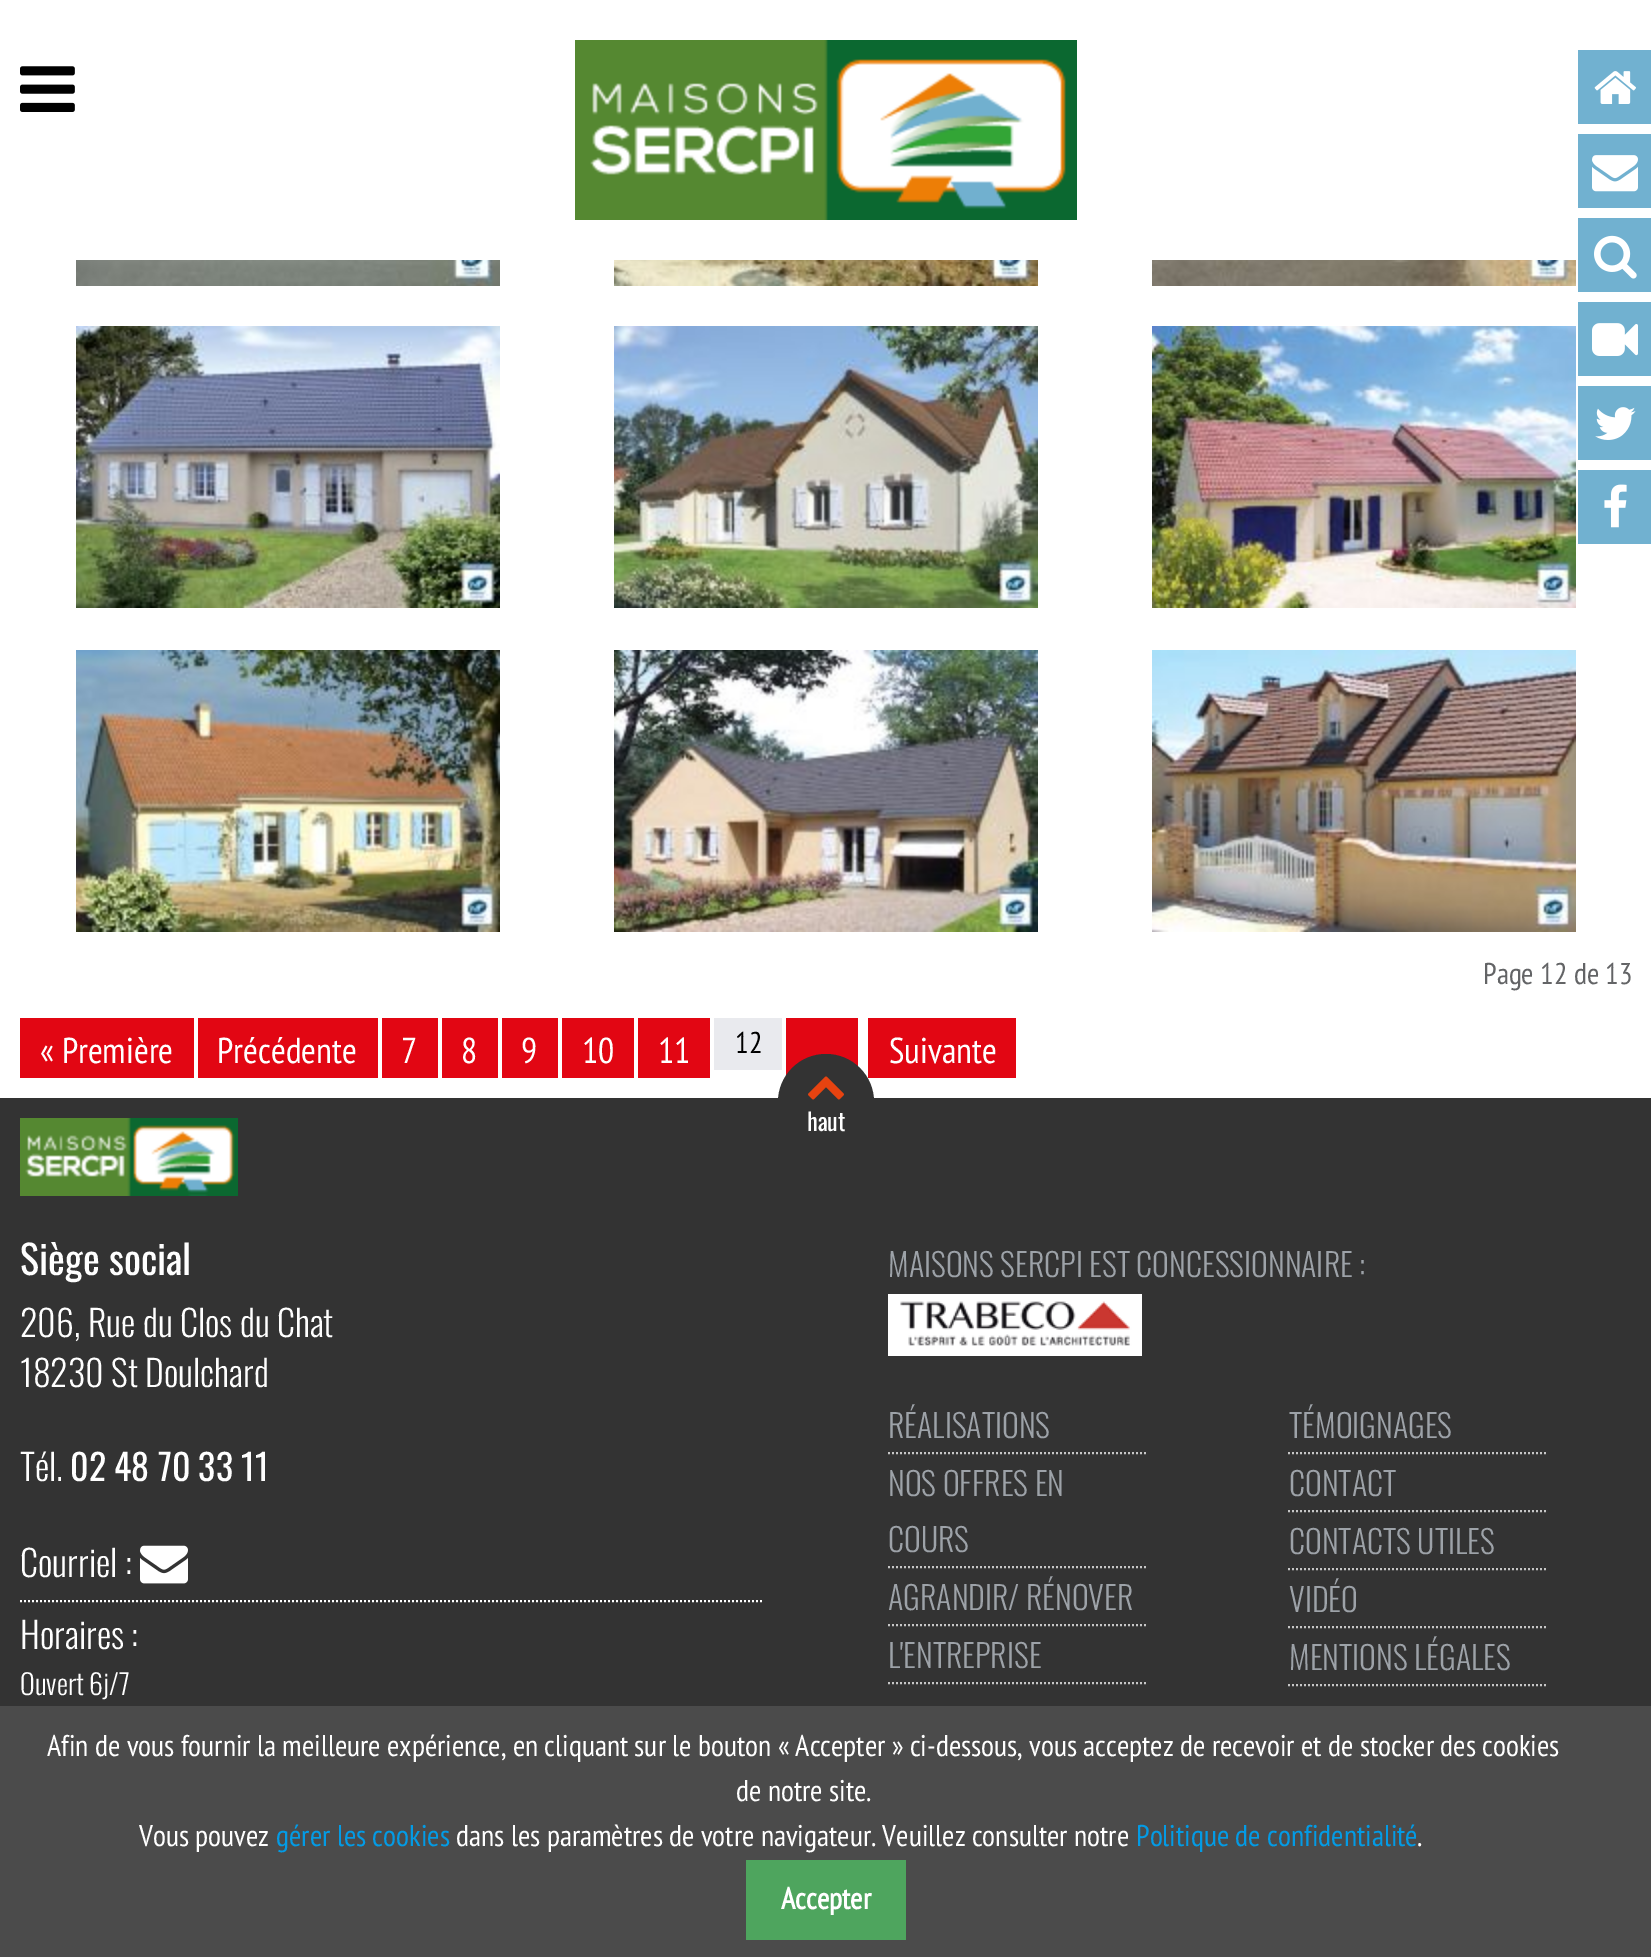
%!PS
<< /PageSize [1651 1957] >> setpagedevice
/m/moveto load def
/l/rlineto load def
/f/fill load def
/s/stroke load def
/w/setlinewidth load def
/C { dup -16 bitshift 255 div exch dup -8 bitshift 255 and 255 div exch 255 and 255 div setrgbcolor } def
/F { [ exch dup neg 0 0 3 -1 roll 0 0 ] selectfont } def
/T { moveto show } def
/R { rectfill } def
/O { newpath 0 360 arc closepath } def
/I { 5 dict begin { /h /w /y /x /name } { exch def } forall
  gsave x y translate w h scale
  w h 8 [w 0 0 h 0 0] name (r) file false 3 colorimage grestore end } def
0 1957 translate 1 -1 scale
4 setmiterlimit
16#FFFFFF C
0 0 1651 1957 R
16#71B1D0 C
1578 50 73 74 R
(1.rgb) 1594 71 42 33 I
1578 134 73 74 R
(2.rgb) 1592 155 46 37 I
1578 218 73 74 R
(3.rgb) 1594 235 43 44 I
1578 302 73 74 R
(4.rgb) 1592 323 46 33 I
1578 386 73 74 R
(5.rgb) 1595 407 41 33 I
1578 470 73 74 R
(6.rgb) 1604 484 23 44 I
(7.rgb) 20 66 55 46 I
(8.rgb) 575 40 502 180 I
(9.rgb) 76 260 424 26 I
(10.rgb) 614 260 424 26 I
(11.rgb) 1152 260 424 26 I
(12.rgb) 76 326 424 282 I
(13.rgb) 614 326 424 282 I
(14.rgb) 1152 326 424 282 I
(15.rgb) 76 650 424 282 I
(16.rgb) 614 650 424 282 I
(17.rgb) 1152 650 424 282 I
/PTSansNarrow-Regular 30 F
16#636466 C
(Page 12 de 13) 1483 984 T
16#E20613 C
20 1018 174 60 R
/PTSansNarrow-Regular 36 F
16#FFFFFF C
(« Première) 40 1063 T
16#E20613 C
198 1018 180 60 R
16#FFFFFF C
(Précédente) 217 1063 T
16#E20613 C
382 1018 56 60 R
16#FFFFFF C
(7) 401 1063 T
16#E20613 C
442 1018 56 60 R
16#FFFFFF C
(8) 461 1063 T
16#E20613 C
502 1018 56 60 R
16#FFFFFF C
(9) 521 1063 T
16#E20613 C
562 1018 72 60 R
16#FFFFFF C
(10) 582 1063 T
16#E20613 C
638 1018 72 60 R
16#FFFFFF C
(11) 658 1063 T
16#E9EAEE C
714 1018 68 52 R
/PTSansNarrow-Regular 30 F
16#000000 C
(12) 735 1053 T
16#E20613 C
786 1018 72 58 R
868 1018 148 60 R
/PTSansNarrow-Regular 36 F
16#FFFFFF C
(Suivante) 889 1063 T
16#333333 C
0 1098 1651 608 R
(18.rgb) 20 1118 218 78 I
826 1102 48 O f
(19.rgb) 808 1076 36 24 I
/Oswald-Regular 24 F
16#FFFFFF C
(haut) 807 1131 T
/Oswald-Regular 40 F
(Siège social) 20 1275 T
/Oswald-Light 36 F
(206, Rue du Clos du Chat) 20 1337 T
(18230 St Doulchard) 20 1387 T
(Tél.) 20 1481 T
/Oswald-Regular 36 F
(02 48 70 33 11) 70 1481 T
/Oswald-Light 36 F
(Courriel :) 20 1577 T
(20.rgb) 140 1545 48 39 I
2 w
[2 2] 0 setdash
20 1601 m 744 0 l s
(Horaires :) 20 1649 T
/Oswald-Light 28 F
(Ouvert 6j/7) 20 1695 T
/Oswald-Light 32 F
16#9DA2A8 C
(MAISONS SERCPI EST CONCESSIONNAIRE :) 888 1277 T
(21.rgb) 888 1294 254 62 I
16#C6C6C6 C
888 1453 m 258 0 l s
16#9DA2A8 C
(RÉALISATIONS) 888 1438 T
16#C6C6C6 C
888 1567 m 258 0 l s
16#9DA2A8 C
(NOS OFFRES EN) 888 1496 T
(COURS) 888 1552 T
16#C6C6C6 C
888 1625 m 258 0 l s
16#9DA2A8 C
(AGRANDIR/ RÉNOVER) 888 1610 T
16#C6C6C6 C
888 1683 m 258 0 l s
16#9DA2A8 C
(L'ENTREPRISE) 888 1668 T
16#C6C6C6 C
1288 1453 m 258 0 l s
16#9DA2A8 C
(TÉMOIGNAGES) 1289 1438 T
16#C6C6C6 C
1288 1511 m 258 0 l s
16#9DA2A8 C
(CONTACT) 1289 1496 T
16#C6C6C6 C
1288 1569 m 258 0 l s
16#9DA2A8 C
(CONTACTS UTILES) 1289 1554 T
16#C6C6C6 C
1288 1627 m 258 0 l s
16#9DA2A8 C
(VIDÉO) 1289 1612 T
16#C6C6C6 C
1288 1685 m 258 0 l s
16#9DA2A8 C
(MENTIONS LÉGALES) 1289 1670 T
16#4B4B4B C
0 1706 1651 251 R
/PTSansNarrow-Regular 30 F
16#FFFFFF C
(Afin de vous fournir la meilleure expérience, en cliquant sur le bouton « Accepter » ci-dessous, vous acceptez de recevoir et de stocker des cookies) 47 1756 T
(de notre site.) 736 1801 T
(Vous pouvez) 139 1846 T
16#039BE5 C
(gérer les cookies) 276 1846 T
16#FFFFFF C
(dans les paramètres de votre navigateur. Veuillez consulter notre) 456 1846 T
16#039BE5 C
(Politique de confidentialité) 1136 1846 T
16#FFFFFF C
(.) 1417 1846 T
16#4EA55E C
746 1860 160 80 R
/PTSansNarrow-Bold 30 F
16#FFFFFF C
(Accepter) 781 1909 T
showpage
